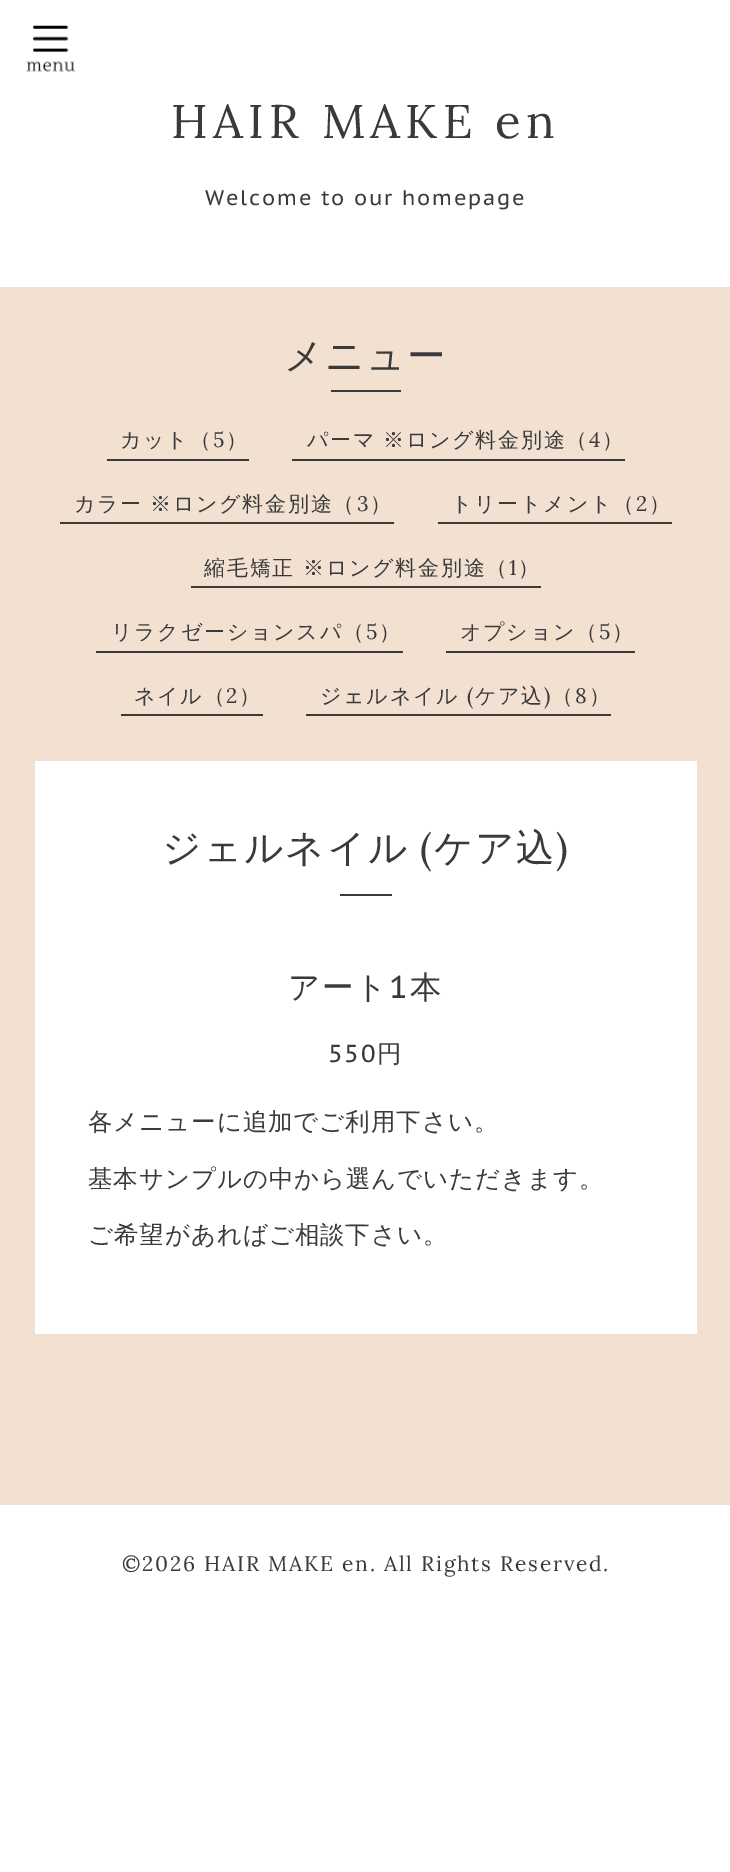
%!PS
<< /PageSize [730 1872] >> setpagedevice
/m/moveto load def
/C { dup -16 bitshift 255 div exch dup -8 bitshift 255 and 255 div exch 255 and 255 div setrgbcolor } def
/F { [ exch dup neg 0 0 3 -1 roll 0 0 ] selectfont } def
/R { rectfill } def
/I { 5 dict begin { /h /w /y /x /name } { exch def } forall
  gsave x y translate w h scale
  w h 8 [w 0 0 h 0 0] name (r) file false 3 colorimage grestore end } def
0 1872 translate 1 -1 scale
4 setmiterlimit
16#FFFFFF C
0 0 730 1872 R
(1.rgb) 26 25 50 47 I
/Lora-Regular 47.25 F
16#3A3A3A C
171 138 m 5.25 0 (HAIR MAKE en) ashow
/PTSansCaption-Regular 21 F
205 205 m 1.75 0 (Welcome to our homepage) ashow
16#F2E1D1 C
0 287 730 1218 R
/WenQuanYiZenHei-Medium 38.5 F
16#3A3A3A C
284 369 m 1.75 0 (メニュー) ashow
331 390 70 2 R
107 459 142 2 R
/WenQuanYiZenHei-Medium 21 F
120 447 m 1.75 0 (カット（) ashow
/Lora-Regular 21 F
213 447 m 1.75 0 (5) ashow
/WenQuanYiZenHei-Medium 21 F
226 447 m 1.75 0 (）) ashow
292 459 333 2 R
307 447 m 1.75 0 (パーマ) ashow
383 447 m 1.75 0 (※ロング料金別途（) ashow
/Lora-Regular 21 F
589 447 m 1.75 0 (4) ashow
/WenQuanYiZenHei-Medium 21 F
602 447 m 1.75 0 (）) ashow
60 522 334 2 R
74 511 m 1.75 0 (カラー) ashow
150 511 m 1.75 0 (※ロング料金別途（) ashow
/Lora-Regular 21 F
357 511 m 1.75 0 (3) ashow
/WenQuanYiZenHei-Medium 21 F
370 511 m 1.75 0 (）) ashow
438 522 234 2 R
451 511 m 1.75 0 (トリートメント（) ashow
/Lora-Regular 21 F
636 511 m 1.75 0 (2) ashow
/WenQuanYiZenHei-Medium 21 F
649 511 m 1.75 0 (）) ashow
191 586 350 2 R
204 575 m 1.75 0 (縮毛矯正) ashow
303 575 m 1.75 0 (※ロング料金別途（) ashow
/Lora-Regular 21 F
509 575 m 1.75 0 (1) ashow
/WenQuanYiZenHei-Medium 21 F
518 575 m 1.75 0 (）) ashow
96 651 307 2 R
111 639 m 1.75 0 (リラクゼーションスパ（) ashow
/Lora-Regular 21 F
366 639 m 1.75 0 (5) ashow
/WenQuanYiZenHei-Medium 21 F
379 639 m 1.75 0 (）) ashow
446 651 189 2 R
460 639 m 1.75 0 (オプション（) ashow
/Lora-Regular 21 F
599 639 m 1.75 0 (5) ashow
/WenQuanYiZenHei-Medium 21 F
612 639 m 1.75 0 (）) ashow
121 714 142 2 R
134 703 m 1.75 0 (ネイル（) ashow
/Lora-Regular 21 F
226 703 m 1.75 0 (2) ashow
/WenQuanYiZenHei-Medium 21 F
239 703 m 1.75 0 (）) ashow
306 714 305 2 R
320 703 m 1.75 0 (ジェルネイル) ashow
/Lora-Regular 21 F
467 703 m 1.75 0 (\() ashow
/WenQuanYiZenHei-Medium 21 F
475 703 m 1.75 0 (ケア込 （) ashow
/Lora-Regular 21 F
544 703 m 1.75 0 (\)) ashow
575 703 m 1.75 0 (8) ashow
/WenQuanYiZenHei-Medium 21 F
589 703 m 1.75 0 (）) ashow
16#FFFFFF C
35 761 662 573 R
/WenQuanYiZenHei-Medium 38.5 F
16#3A3A3A C
162 861 m 1.75 0 (ジェルネイル) ashow
/Lora-Regular 38.5 F
420 861 m 1.75 0 (\() ashow
/WenQuanYiZenHei-Medium 38.5 F
434 861 m 1.75 0 (ケア込) ashow
/Lora-Regular 38.5 F
556 861 m 1.75 0 (\)) ashow
340 894 52 2 R
/WenQuanYiZenHei-Medium 31.5 F
288 998 m 1.75 0 (アート) ashow
/PTSansCaption-Regular 31.5 F
389 998 m 1.75 0 (1) ashow
/WenQuanYiZenHei-Medium 31.5 F
410 998 m 1.75 0 (本) ashow
/PTSansCaption-Regular 24.5 F
328 1062 m 1.75 0 (550) ashow
/WenQuanYiZenHei-Medium 24.5 F
377 1062 m 1.75 0 (円) ashow
88 1130 m .9 0 (各メニューに追加でご利用下さい。) ashow
88 1187 m .9 0 (基本サンプルの中から選んでいただきます。) ashow
88 1243 m .9 0 (ご希望があればご相談下さい。) ashow
/Lora-Regular 21 F
122 1571 m 1.75 0 (©2026 HAIR MAKE en. All Rights Reserved.) ashow
showpage
